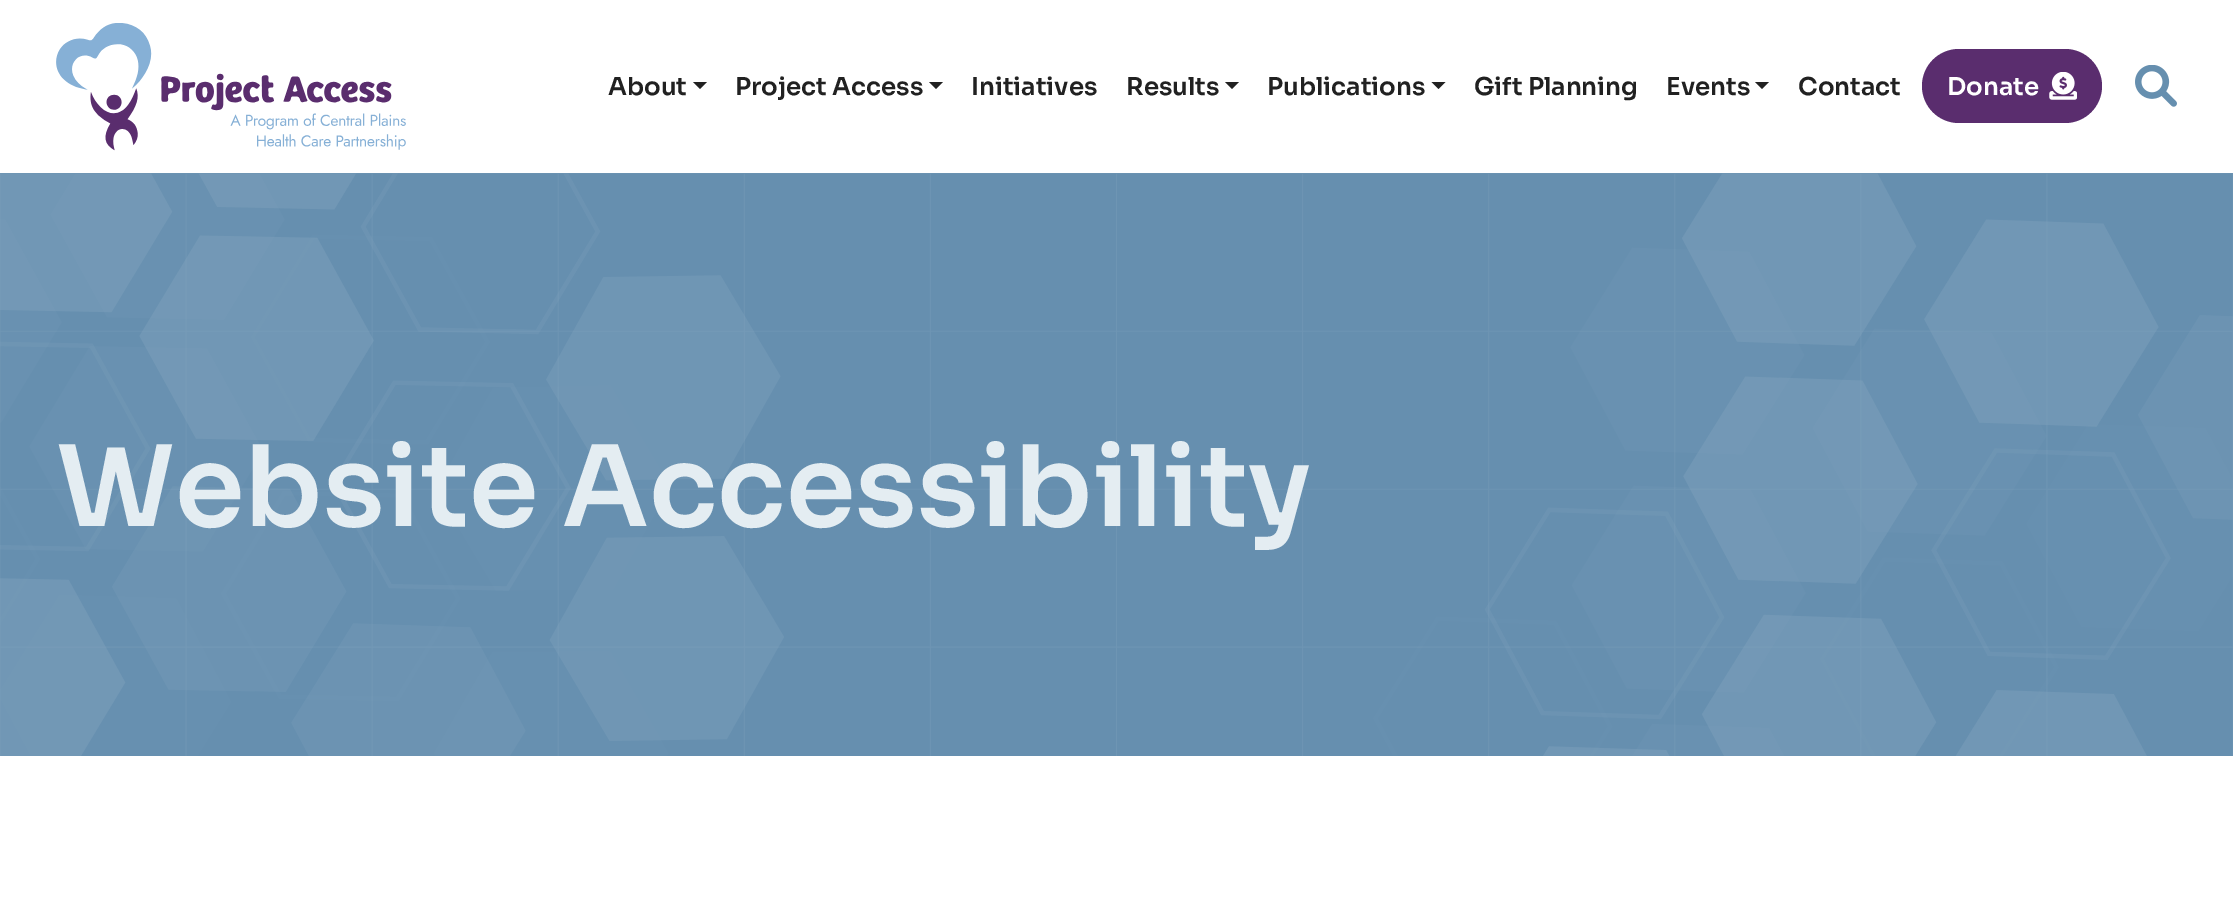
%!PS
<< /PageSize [2233 902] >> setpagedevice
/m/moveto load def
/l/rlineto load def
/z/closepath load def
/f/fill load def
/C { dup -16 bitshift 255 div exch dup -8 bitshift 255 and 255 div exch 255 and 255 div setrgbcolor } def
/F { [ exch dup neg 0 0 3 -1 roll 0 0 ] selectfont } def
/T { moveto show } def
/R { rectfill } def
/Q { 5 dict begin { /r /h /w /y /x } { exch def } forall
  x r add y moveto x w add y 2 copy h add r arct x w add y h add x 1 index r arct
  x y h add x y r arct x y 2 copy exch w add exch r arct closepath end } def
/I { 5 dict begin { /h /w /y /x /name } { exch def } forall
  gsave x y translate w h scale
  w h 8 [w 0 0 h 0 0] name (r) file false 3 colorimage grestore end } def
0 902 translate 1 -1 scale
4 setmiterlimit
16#FFFFFF C
0 0 2233 902 R
(1.rgb) 56 23 350 128 I
/Sora-SemiBold 24.5 F
16#212121 C
(About) 608 95 T
693 82 m 14 0 l -7 7 l z f
(Project Access) 735 95 T
929 82 m 14 0 l -7 7 l z f
(Initiatives) 971 95 T
(Results) 1126 95 T
1225 82 m 14 0 l -7 7 l z f
(Publications) 1267 95 T
1431.5 82 m 14 0 l -7 7 l z f
(Gift Planning) 1474 95 T
(Events) 1666 95 T
1755 82 m 14 0 l -7 7 l z f
(Contact) 1798 95 T
16#5A2D6E C
1922 49 180 74 37 Q f
16#FFFFFF C
(Donate) 1947 95 T
(2.rgb) 2049 72 28 28 I
(3.rgb) 2135 65 42 42 I
16#668FAF C
0 173 2233 583 R
(4.rgb) 0 173 2233 583 I
/Sora-SemiBold 112 F
16#E4EDF2 C
(Website Accessibility) 56 526 T
showpage
